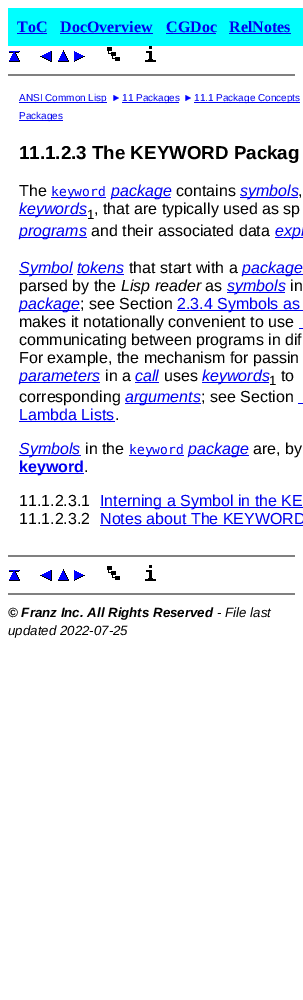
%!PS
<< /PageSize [303 1000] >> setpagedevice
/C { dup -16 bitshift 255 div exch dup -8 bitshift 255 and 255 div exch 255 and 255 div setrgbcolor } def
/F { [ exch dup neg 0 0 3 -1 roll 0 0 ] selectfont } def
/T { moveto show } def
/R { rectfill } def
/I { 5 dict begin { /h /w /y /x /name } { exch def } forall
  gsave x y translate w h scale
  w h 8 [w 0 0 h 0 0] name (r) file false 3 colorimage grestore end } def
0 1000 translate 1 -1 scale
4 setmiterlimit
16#FFFFFF C
0 0 303 1000 R
16#00FFFF C
8 8 295 38 R
/LiberationSerif-Bold 16 F
16#0000EE C
(ToC) 17 32 T
17 33 30 1 R
(DocOverview) 60 32 T
60 33 93 1 R
(CGDoc) 166 32 T
166 33 50 1 R
(RelNotes) 229 32 T
229 33 62 1 R
(1.rgb) 9 51 11 11 I
(2.rgb) 40 51 12 11 I
(3.rgb) 58 50 11 12 I
(4.rgb) 74 51 11 11 I
(5.rgb) 107 47 13 14 I
(6.rgb) 145 46 11 16 I
16#808080 C
8 74 287 2 R
16#0000EE C
19 102 88 1 R
/LiberationSans-Regular 10 F
(ANSI Common Lisp) 19 101 T
(7.rgb) 113 95 6 6 I
122 102 57 1 R
(11 Packages) 122 101 T
(7.rgb) 185 95 6 6 I
194 102 106 1 R
(11.1 Package Concepts) 194 101 T
19 120 44 1 R
(Packages) 19 119 T
/LiberationSans-Bold 18.75 F
16#000000 C
(11.1.2.3 The KEYWORD Packag) 19 159 T
/LiberationSans-Regular 16 F
(The) 19 196 T
16#0000EE C
51 197 55 1 R
/DejaVuSansMono-Regular 13 F
(keyword) 51 196 T
111 197 60 1 R
/LiberationSans-Italic 16 F
(package) 111 196 T
/LiberationSans-Regular 16 F
16#000000 C
(contains) 176 196 T
16#0000EE C
240 197 58 1 R
/LiberationSans-Italic 16 F
(symbols) 240 196 T
/LiberationSans-Regular 16 F
16#000000 C
(,) 298 196 T
16#0000EE C
19 215 68 1 R
/LiberationSans-Italic 16 F
(keywords) 19 214 T
/LiberationSans-Regular 13.3 F
16#000000 C
(1) 87 219 T
/LiberationSans-Regular 16 F
(, that are typically used as sp) 94 214 T
16#0000EE C
19 237 68 1 R
/LiberationSans-Italic 16 F
(programs) 19 236 T
/LiberationSans-Regular 16 F
16#000000 C
(and their associated data) 91 236 T
16#0000EE C
275 237 28 1 R
/LiberationSans-Italic 16 F
(expr) 275 236 T
19 274 54 1 R
(Symbol tokens) 19 273 T
/LiberationSans-Regular 16 F
16#000000 C
(that start with a) 129 273 T
16#0000EE C
242 274 61 1 R
/LiberationSans-Italic 16 F
(package) 242 273 T
77 274 47 1 R
/LiberationSans-Regular 16 F
16#000000 C
(parsed by the) 19 291 T
/LiberationSans-Italic 16 F
(Lisp reader) 121 291 T
/LiberationSans-Regular 16 F
(as) 205 291 T
16#0000EE C
227 292 58 1 R
/LiberationSans-Italic 16 F
(symbols) 227 291 T
/LiberationSans-Regular 16 F
16#000000 C
(in) 290 291 T
16#0000EE C
19 310 61 1 R
/LiberationSans-Italic 16 F
(package) 19 309 T
/LiberationSans-Regular 16 F
16#000000 C
(; see Section) 80 309 T
16#0000EE C
177 310 126 1 R
(2.3.4 Symbols as) 177 309 T
16#000000 C
(makes it notationally convenient to use) 19 327 T
16#0000EE C
299 328 4 1 R
16#000000 C
(communicating between programs in dif) 19 345 T
(For example, the mechanism for passin) 19 363 T
16#0000EE C
19 382 81 1 R
/LiberationSans-Italic 16 F
(parameters) 19 381 T
/LiberationSans-Regular 16 F
16#000000 C
(in a) 105 381 T
/LiberationSans-Italic 16 F
16#0000EE C
(call) 135 381 T
135 382 24 1 R
/LiberationSans-Regular 16 F
16#000000 C
(uses) 164 381 T
16#0000EE C
202 382 67 1 R
/LiberationSans-Italic 16 F
(keywords) 202 381 T
/LiberationSans-Regular 13.3 F
16#000000 C
(1) 269 385 T
/LiberationSans-Regular 16 F
(to) 281 381 T
(corresponding) 19 402 T
16#0000EE C
125 403 76 1 R
/LiberationSans-Italic 16 F
(arguments) 125 402 T
/LiberationSans-Regular 16 F
16#000000 C
(; see Section) 201 402 T
16#0000EE C
(Lambda Lists) 19 420 T
298 403 5 1 R
19 421 96 1 R
16#000000 C
(.) 115 420 T
16#0000EE C
19 455 62 1 R
/LiberationSans-Italic 16 F
(Symbols) 19 454 T
/LiberationSans-Regular 16 F
16#000000 C
(in the) 85 454 T
16#0000EE C
129 455 55 1 R
/DejaVuSansMono-Regular 13 F
(keyword) 129 454 T
188 455 61 1 R
/LiberationSans-Italic 16 F
(package) 188 454 T
/LiberationSans-Regular 16 F
16#000000 C
(are, by) 253 454 T
16#0000EE C
19 473 65 1 R
/LiberationSans-Bold 16 F
(keyword) 19 472 T
/LiberationSans-Regular 16 F
16#000000 C
(.) 84 472 T
(11.1.2.3.1) 19 506 T
16#0000EE C
100 507 203 1 R
(Interning a Symbol in the KE) 100 506 T
16#000000 C
(11.1.2.3.2) 19 524 T
16#0000EE C
(Notes about The KEYWORD) 100 524 T
100 525 203 1 R
16#808080 C
8 555 287 2 R
(1.rgb) 9 570 11 11 I
(2.rgb) 40 570 12 11 I
(3.rgb) 58 569 11 12 I
(4.rgb) 74 570 11 11 I
(5.rgb) 107 566 13 14 I
(6.rgb) 145 565 11 16 I
8 593 287 2 R
/LiberationSans-BoldItalic 13.3 F
16#000000 C
(© Franz Inc. All Rights Reserved) 8 617 T
/LiberationSans-Italic 13.3 F
(- File last) 217 617 T
(updated 2022-07-25) 8 635 T
showpage
